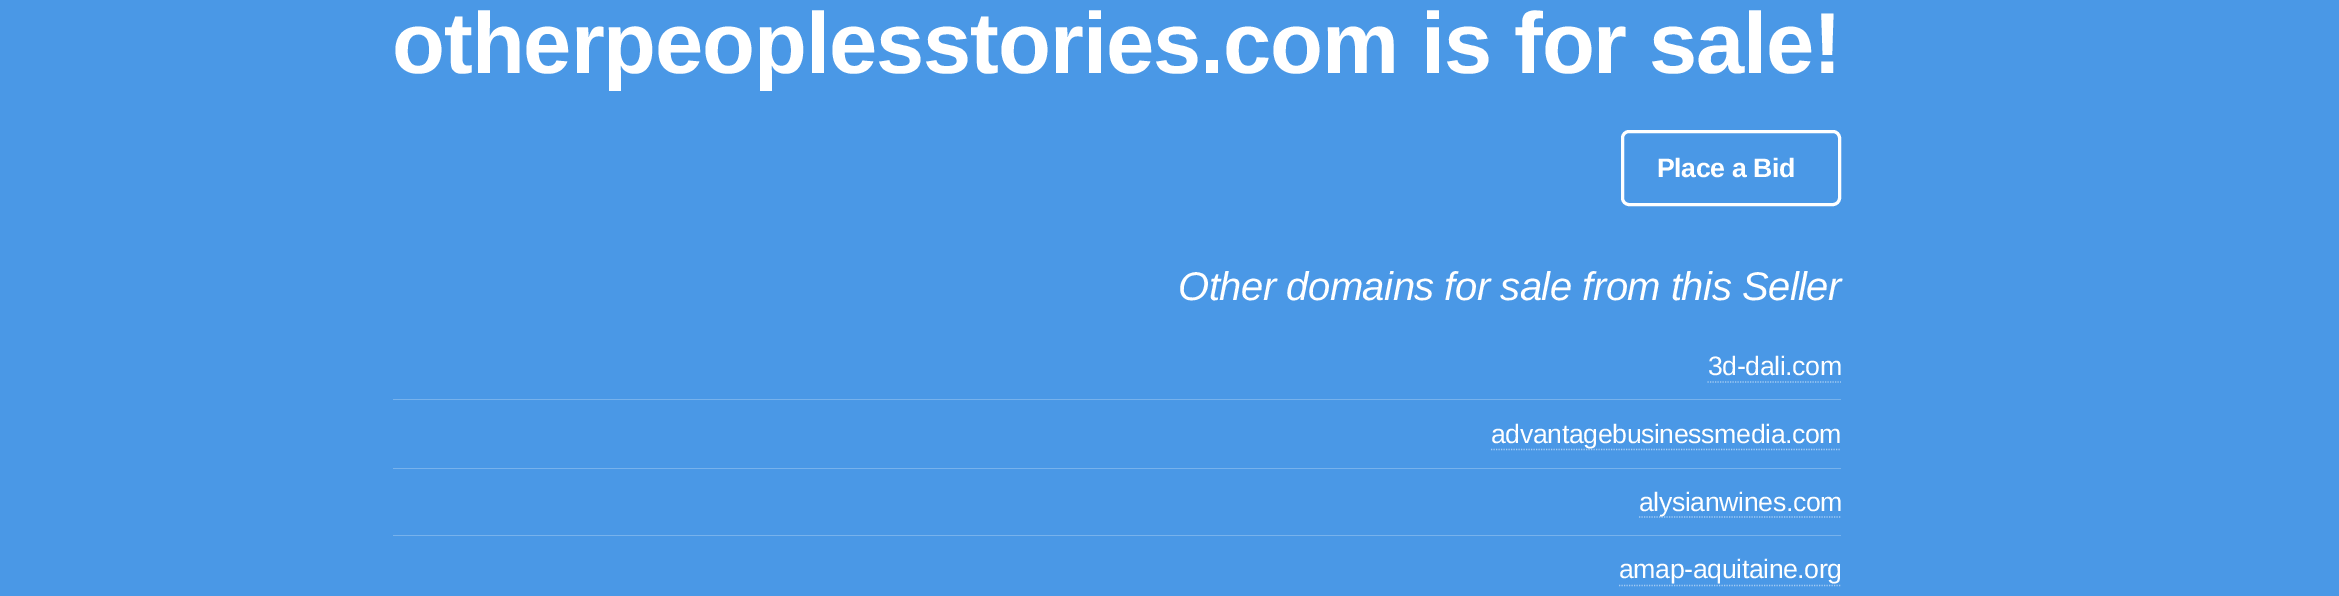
%!PS
<< /PageSize [2339 596] >> setpagedevice
/m/moveto load def
/l/rlineto load def
/s/stroke load def
/w/setlinewidth load def
/C { dup -16 bitshift 255 div exch dup -8 bitshift 255 and 255 div exch 255 and 255 div setrgbcolor } def
/F { [ exch dup neg 0 0 3 -1 roll 0 0 ] selectfont } def
/R { rectfill } def
/Q { 5 dict begin { /r /h /w /y /x } { exch def } forall
  x r add y moveto x w add y 2 copy h add r arct x w add y h add x 1 index r arct
  x y h add x y r arct x y 2 copy exch w add exch r arct closepath end } def
0 596 translate 1 -1 scale
4 setmiterlimit
16#4A98E6 C
0 0 2339 596 R
/LiberationSans-Bold 86.7 F
16#FFFFFF C
392 73 m -1.1 0 (otherpeoplesstories.com is for sale!) ashow
3 w
1622.5 131.5 217 73 6.5 Q s
/LiberationSans-Bold 26.7 F
1657 177 m -.4 0 (Place a Bid) ashow
/LiberationSans-Italic 40 F
1178 300 m -.5 0 (Other domains for sale from this Seller) ashow
/LiberationSans-Regular 26.7 F
1708 375 m -.4 0 (3d-dali.com) ashow
16#A5CCF3 C
1.2 w
[1.25 1.25] 0 setdash
1707.5 382 m 133.5 0 l s
16#77B2EC C
393 399 1448 1 R
16#A5CCF3 C
1491 449.5 m 350 0 l s
16#FFFFFF C
1491 443 m -.4 0 (advantagebusinessmedia.com) ashow
16#77B2EC C
393 468 1448 1 R
16#A5CCF3 C
1639 517 m 202 0 l s
16#FFFFFF C
1639 511 m -.4 0 (alysianwines.com) ashow
16#77B2EC C
393 535 1448 1 R
16#FFFFFF C
1619 578 m -.4 0 (amap-aquitaine.org) ashow
16#A5CCF3 C
1619 585.5 m 222 0 l s
showpage
